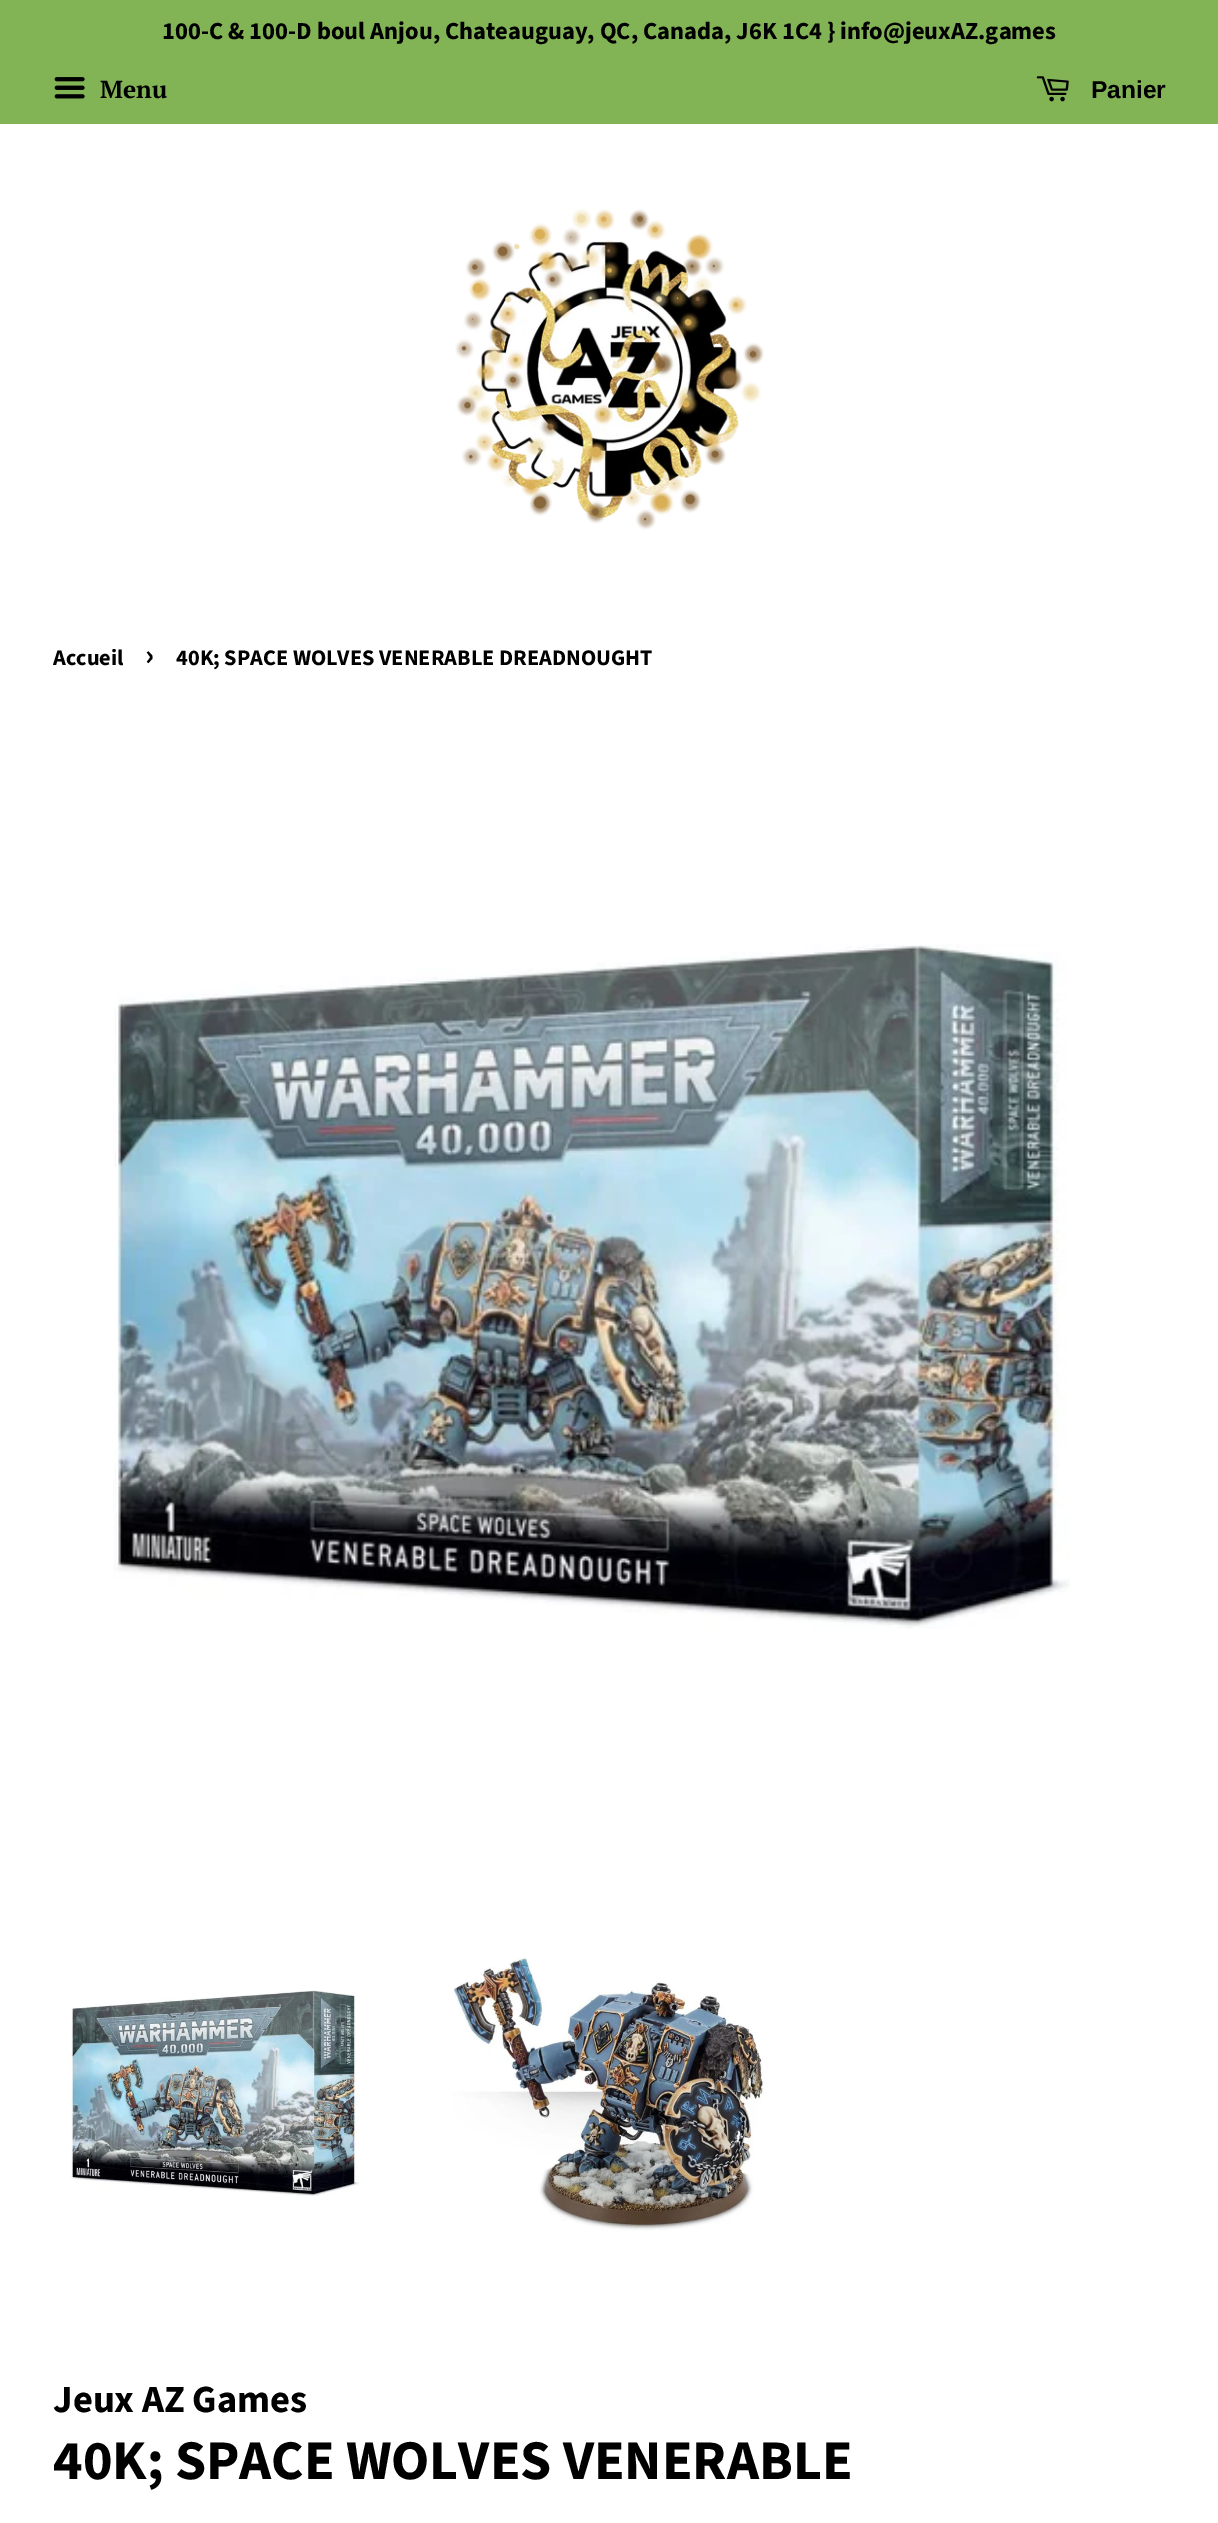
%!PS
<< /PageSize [1218 2523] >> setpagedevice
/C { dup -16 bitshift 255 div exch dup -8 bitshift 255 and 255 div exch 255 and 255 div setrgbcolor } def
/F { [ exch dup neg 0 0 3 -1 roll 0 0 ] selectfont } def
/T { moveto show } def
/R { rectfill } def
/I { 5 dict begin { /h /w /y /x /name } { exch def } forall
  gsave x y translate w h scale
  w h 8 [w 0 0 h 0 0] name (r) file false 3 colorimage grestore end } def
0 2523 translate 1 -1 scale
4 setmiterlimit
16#FFFFFF C
0 0 1218 2523 R
16#82B355 C
0 0 1218 124 R
/SourceSansPro-Bold 24.5 F
16#000000 C
(100-C & 100-D boul Anjou, Chateauguay, QC, Canada, J6K 1C4 } info@jeuxAZ.games) 162 39 T
(1.rgb) 54 77 31 22 I
/PTSerif-Bold 24.5 F
(Menu) 100 98 T
(2.rgb) 1036 76 33 26 I
/LiberationSans-Bold 24.5 F
(Panier) 1091 98 T
(3.rgb) 455 209 309 321 I
/SourceSansPro-Bold 22.3 F
(Accueil) 53 665 T
/SourceSansPro-Bold 31 F
(›) 145 665 T
/SourceSansPro-Bold 22.3 F
(40K; SPACE WOLVES VENERABLE DREADNOUGHT) 176 665 T
(4.rgb) 113 944 957 685 I
(5.rgb) 71 1990 288 206 I
(6.rgb) 452 1957 314 274 I
/SourceSansPro-Bold 38.5 F
(Jeux AZ Games) 53 2412 T
/SourceSansPro-Bold 56 F
(40K; SPACE WOLVES VENERABLE) 53 2479 T
showpage
